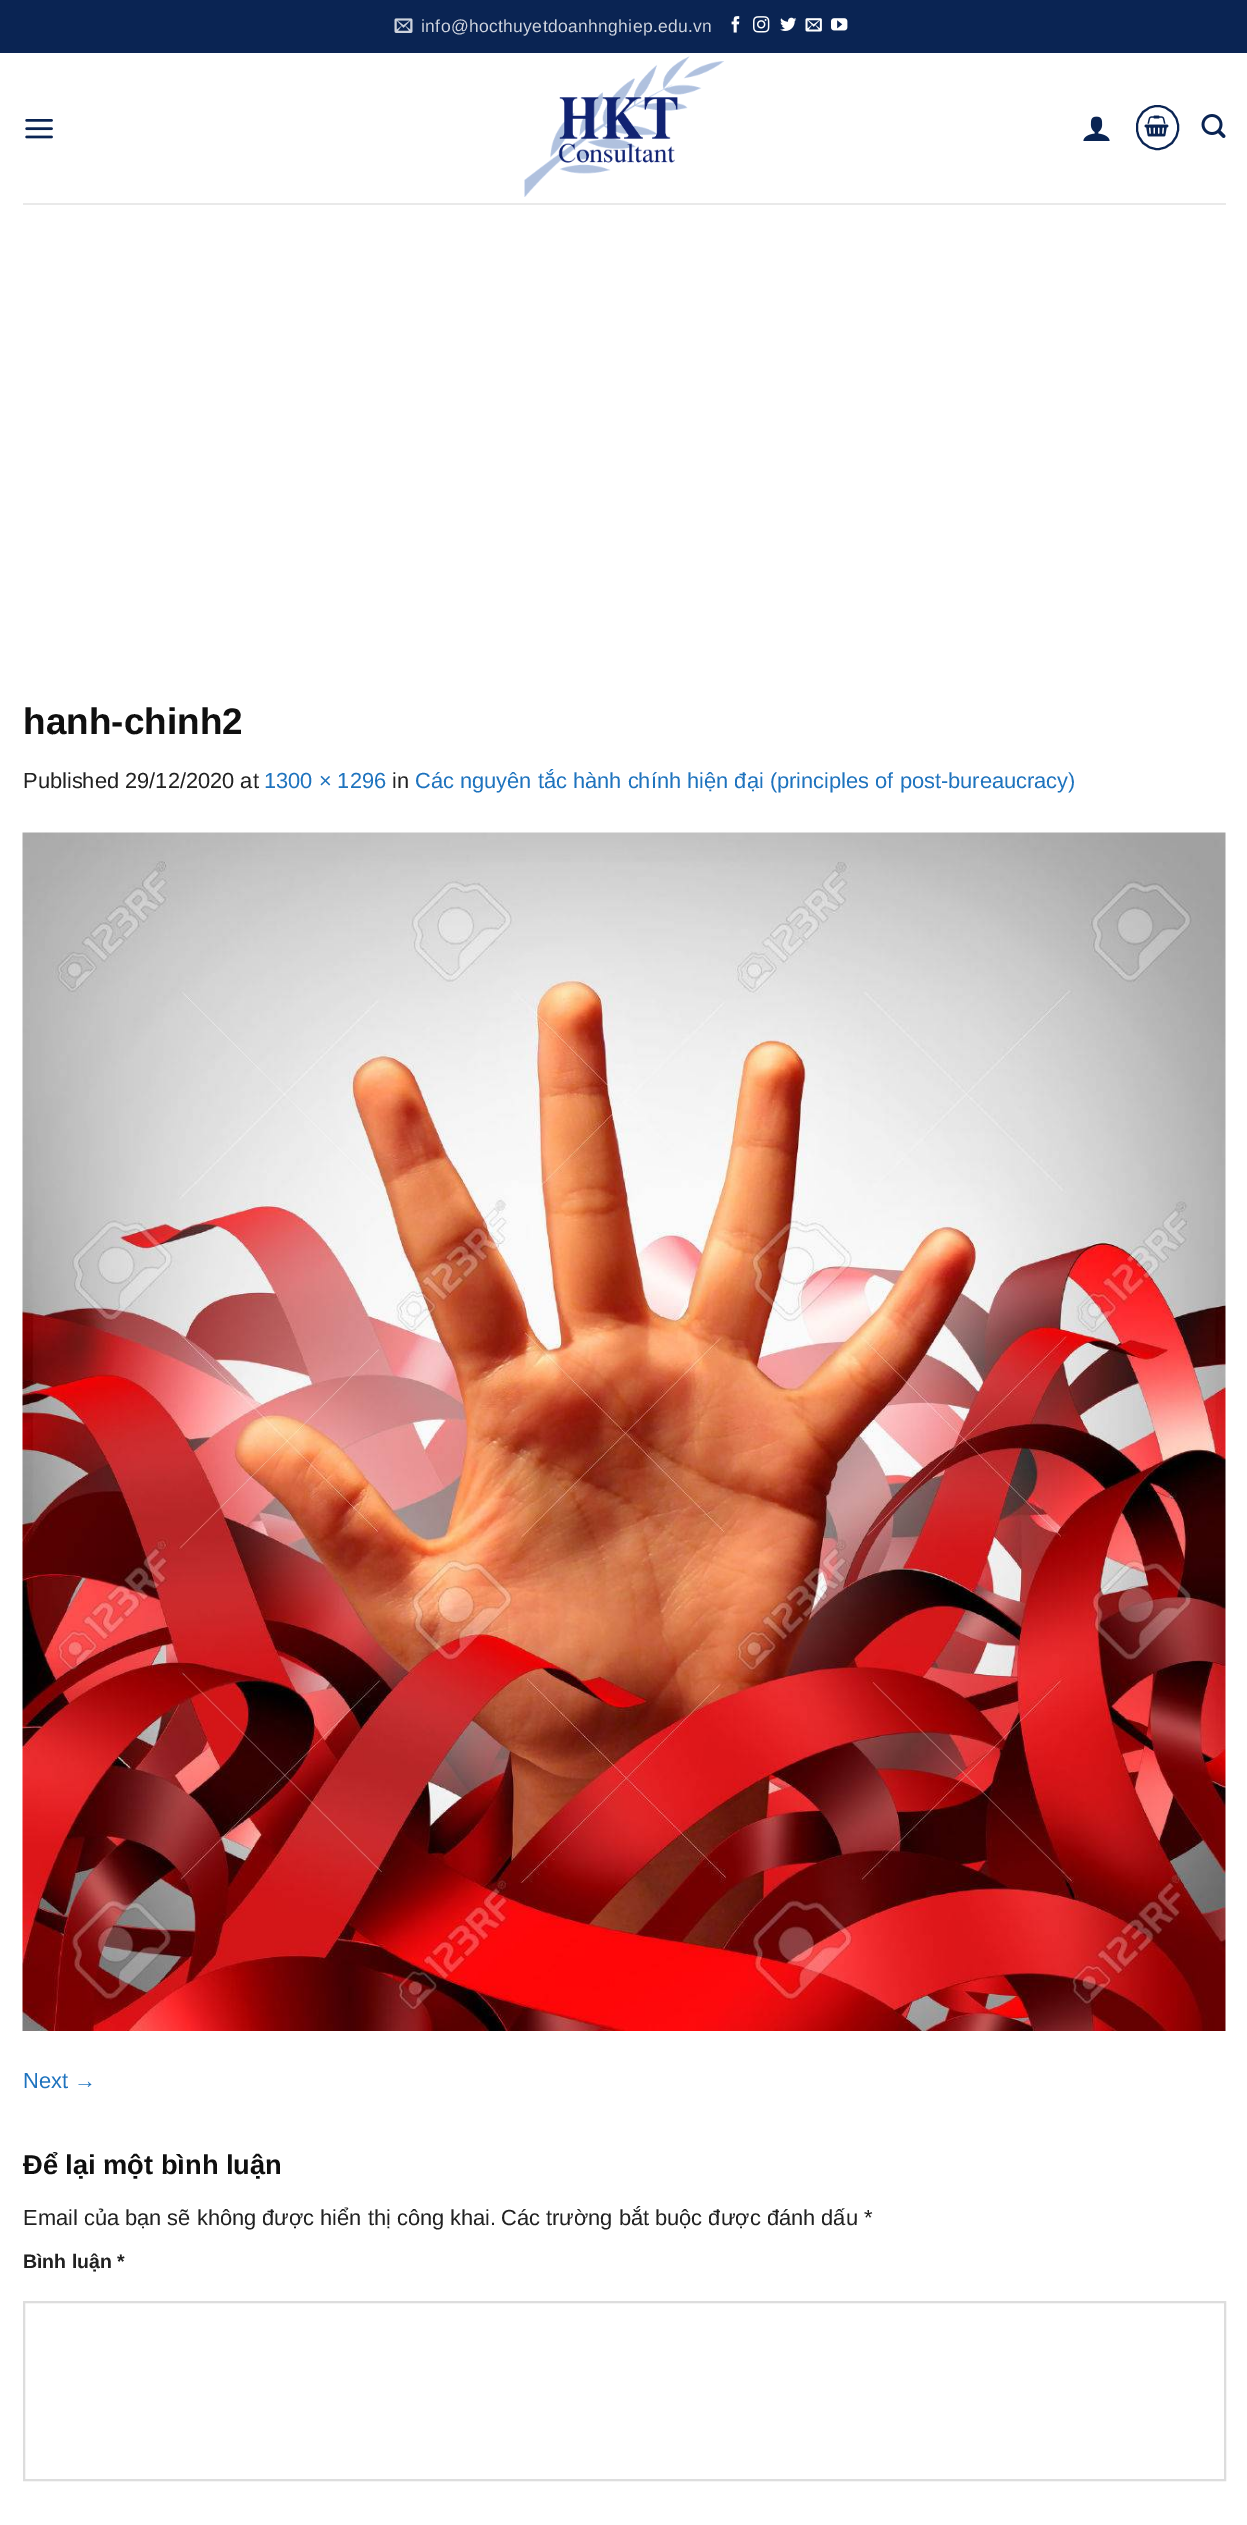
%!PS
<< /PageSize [1247 2525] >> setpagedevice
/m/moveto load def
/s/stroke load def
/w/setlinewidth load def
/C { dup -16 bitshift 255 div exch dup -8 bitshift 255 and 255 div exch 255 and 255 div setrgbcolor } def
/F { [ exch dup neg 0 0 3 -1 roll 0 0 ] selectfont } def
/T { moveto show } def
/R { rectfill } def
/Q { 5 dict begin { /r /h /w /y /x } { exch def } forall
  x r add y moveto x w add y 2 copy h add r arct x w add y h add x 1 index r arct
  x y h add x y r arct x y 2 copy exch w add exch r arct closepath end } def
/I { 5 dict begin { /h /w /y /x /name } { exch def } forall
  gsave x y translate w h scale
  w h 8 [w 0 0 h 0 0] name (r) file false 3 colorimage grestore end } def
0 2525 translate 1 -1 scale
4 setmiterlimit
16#FFFFFF C
0 0 1247 2525 R
16#0A2453 C
0 0 1247 53 R
(1.rgb) 394 18 19 15 I
/LiberationSans-Regular 17.5 F
16#CED3DD C
421 32 m .35 0 (info@hocthuyetdoanhnghiep.edu.vn) ashow
(2.rgb) 731 16 9 17 I
(3.rgb) 753 16 17 17 I
(4.rgb) 780 17 17 14 I
(5.rgb) 805 18 17 14 I
(6.rgb) 831 18 17 13 I
(7.rgb) 25 119 28 20 I
(8.rgb) 524 56 200 141 I
(9.rgb) 1083 116 27 25 I
16#0A2453 C
2 w
1137 106 41 43 20.5 Q s
(10.rgb) 1144 115 25 22 I
(11.rgb) 1201 114 25 24 I
16#E9E9E9 C
23 203 1203 2 R
/LiberationSans-Bold 37 F
16#0F0F0F C
(hanh-chinh2) 23 734 T
/LiberationSans-Regular 21.85 F
16#212121 C
(Published 29/12/2020 at) 23 788 T
16#1E73BE C
(1300 × 1296) 264 788 T
16#212121 C
(in) 392 788 T
16#1E73BE C
(Các nguyên tắc hành chính hiện đại \(principles of post-bureaucracy\)) 415 788 T
(12.rgb) 22 832 1204 1199 I
(Next →) 23 2088 T
/LiberationSans-Bold 27.25 F
16#0F0F0F C
(Để lại một bình luận) 23 2174 T
/LiberationSans-Regular 21.85 F
16#212121 C
(Email của bạn sẽ không được hiển thị công khai.) 23 2225 T
(Các trường bắt buộc được đánh dấu) 501 2225 T
(*) 864 2225 T
/LiberationSans-Bold 19.5 F
(Bình luận *) 23 2268 T
16#DDDDDD C
24 2302 1201 178 rectstroke
showpage
